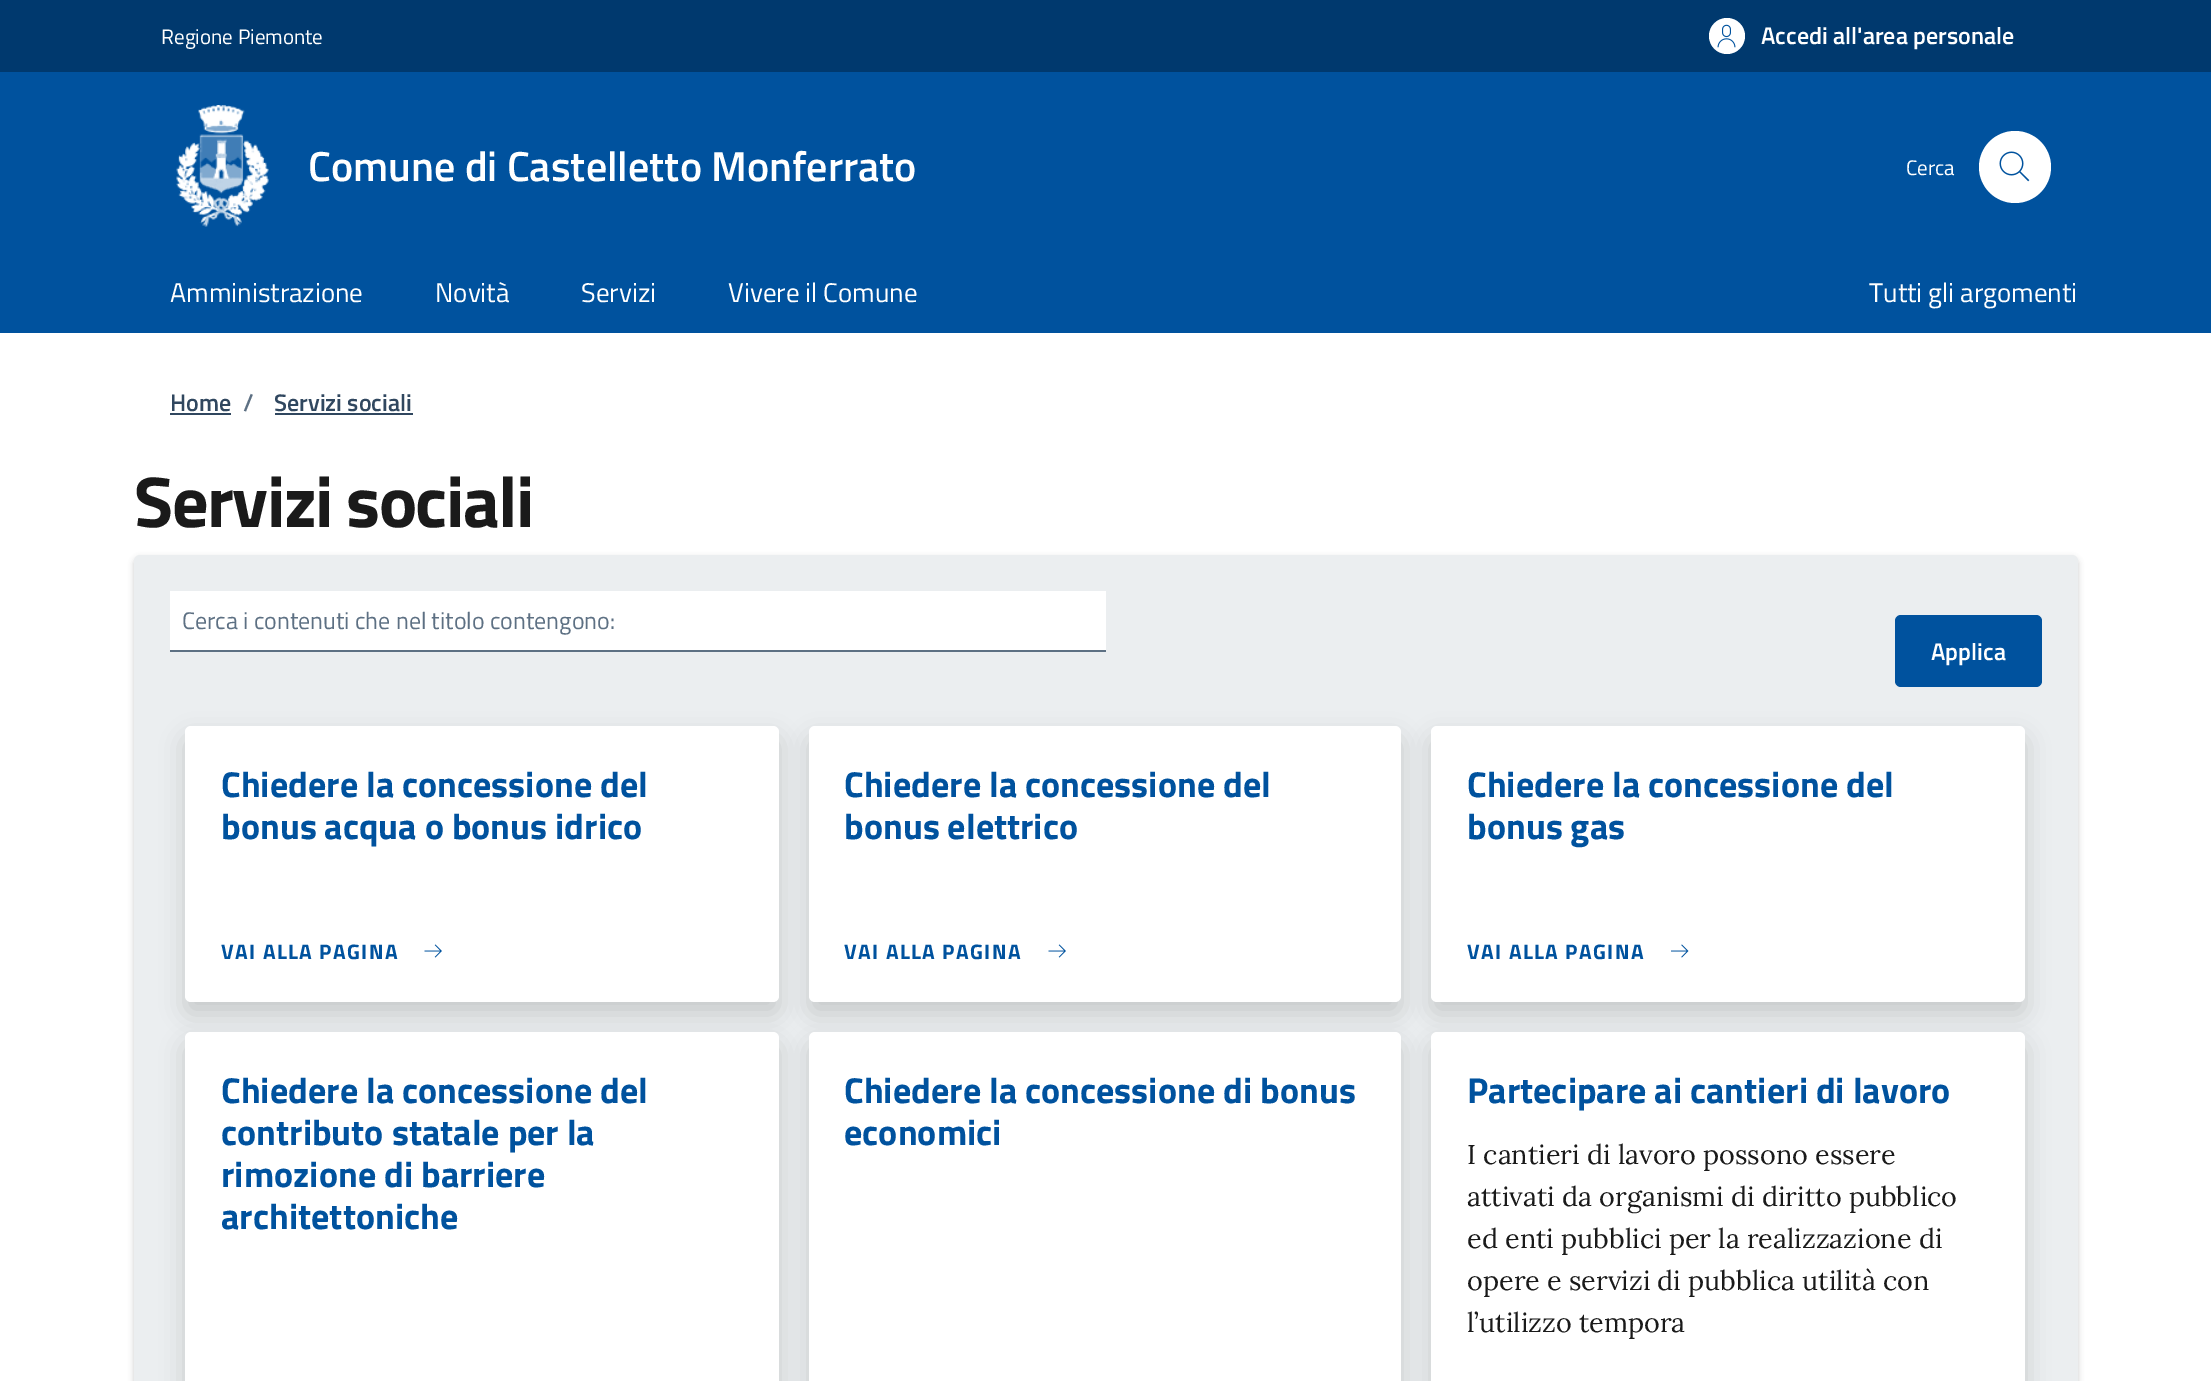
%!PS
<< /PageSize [2211 1381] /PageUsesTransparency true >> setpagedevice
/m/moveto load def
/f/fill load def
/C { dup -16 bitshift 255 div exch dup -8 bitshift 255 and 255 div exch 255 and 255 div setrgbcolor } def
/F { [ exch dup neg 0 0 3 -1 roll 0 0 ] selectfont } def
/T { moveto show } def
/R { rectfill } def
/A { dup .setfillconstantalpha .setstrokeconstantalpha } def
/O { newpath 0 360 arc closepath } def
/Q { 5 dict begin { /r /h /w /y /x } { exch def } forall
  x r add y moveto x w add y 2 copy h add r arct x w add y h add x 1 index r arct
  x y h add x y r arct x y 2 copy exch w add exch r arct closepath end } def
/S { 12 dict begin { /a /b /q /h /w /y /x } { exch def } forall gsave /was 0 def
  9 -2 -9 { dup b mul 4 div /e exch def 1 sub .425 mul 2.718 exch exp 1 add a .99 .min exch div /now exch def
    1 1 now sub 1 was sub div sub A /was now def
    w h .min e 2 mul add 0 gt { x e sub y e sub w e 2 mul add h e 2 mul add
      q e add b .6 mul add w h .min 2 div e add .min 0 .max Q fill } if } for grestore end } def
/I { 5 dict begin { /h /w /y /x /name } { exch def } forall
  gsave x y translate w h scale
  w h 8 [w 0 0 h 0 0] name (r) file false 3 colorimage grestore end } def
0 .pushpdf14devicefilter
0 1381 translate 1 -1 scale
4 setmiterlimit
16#FFFFFF C
0 0 2211 1381 R
16#00396E C
0 0 2211 72 R
/TitilliumWeb-Regular 21 F
16#FFFFFF C
(Regione Piemonte) 161 44 T
1727 36 18 O f
(1.rgb) 1717 24 19 24 I
/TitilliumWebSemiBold-SemiBold 24 F
(Accedi all'area personale) 1761 44 T
16#00529E C
0 72 2211 261 R
(2.rgb) 176 105 93 122 I
/TitilliumWebSemiBold-SemiBold 42 F
16#FFFFFF C
(Comune di Castelletto Monferrato) 308 181 T
/TitilliumWeb-Regular 21 F
(Cerca) 1906 175 T
2015 167 36 O f
(3.rgb) 1999 151 31 31 I
/TitilliumWeb-Regular 27 F
(Amministrazione) 170 302 T
(Novità) 435 302 T
(Servizi) 581 302 T
(Vivere il Comune) 728 302 T
(Tutti gli argomenti) 1869 302 T
/TitilliumWebSemiBold-SemiBold 24 F
16#30475F C
(Home) 170 411 T
170 413 61 2 R
16#5D7083 C
(/) 243 411 T
16#30475F C
(Servizi sociali) 274 411 T
275 413 138 2 R
/TitilliumWeb-Bold 72 F
16#1A1A1A C
134 527 m -1.5 0 (Servizi sociali) ashow
16#000000 C
134 558 1944 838 6 3 .2 S
16#EBEEF0 C
134 555 1944 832 6 Q f
16#FFFFFF C
170 591 936 59 R
16#5D7083 C
170 650 936 2 R
/TitilliumWeb-Regular 24 F
(Cerca i contenuti che nel titolo contengono:) 182 629 T
16#00529E C
1895 615 147 72 6 Q f
/TitilliumWebSemiBold-SemiBold 24 F
16#FFFFFF C
(Applica) 1931 660 T
16#000000 C
185 738 594 276 6 12 .15 S
16#FFFFFF C
185 726 594 276 6 Q f
/TitilliumWeb-Bold 36 F
16#00529E C
(Chiedere la concessione del) 221 797 T
(bonus acqua o bonus idrico) 221 839 T
/TitilliumWeb-Bold 21 F
221 959 m 1.4 0 (VAI ALLA PAGINA) ashow
(4.rgb) 424 944 18 14 I
16#000000 C
809 738 592 276 6 12 .15 S
16#FFFFFF C
809 726 592 276 6 Q f
/TitilliumWeb-Bold 36 F
16#00529E C
(Chiedere la concessione del) 844 797 T
(bonus elettrico) 844 839 T
/TitilliumWeb-Bold 21 F
844 959 m 1.4 0 (VAI ALLA PAGINA) ashow
(4.rgb) 1048 944 18 14 I
16#000000 C
1431 738 594 276 6 12 .15 S
16#FFFFFF C
1431 726 594 276 6 Q f
/TitilliumWeb-Bold 36 F
16#00529E C
(Chiedere la concessione del) 1467 797 T
(bonus gas) 1467 839 T
/TitilliumWeb-Bold 21 F
1467 959 m 1.4 0 (VAI ALLA PAGINA) ashow
(5.rgb) 1671 944 18 14 I
16#000000 C
185 1044 594 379 6 12 .15 S
16#FFFFFF C
185 1032 594 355 6 Q f
/TitilliumWeb-Bold 36 F
16#00529E C
(Chiedere la concessione del) 221 1103 T
(contributo statale per la) 221 1145 T
(rimozione di barriere) 221 1187 T
(architettoniche) 221 1229 T
16#000000 C
809 1044 592 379 6 12 .15 S
16#FFFFFF C
809 1032 592 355 6 Q f
16#00529E C
(Chiedere la concessione di bonus) 844 1103 T
(economici) 844 1145 T
16#000000 C
1431 1044 594 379 6 12 .15 S
16#FFFFFF C
1431 1032 594 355 6 Q f
16#00529E C
(Partecipare ai cantieri di lavoro) 1467 1103 T
/Lora-Regular 27 F
16#1A1A1A C
(I cantieri di lavoro possono essere) 1467 1164 T
(attivati da organismi di diritto pubblico) 1467 1206 T
(ed enti pubblici per la realizzazione di) 1467 1248 T
(opere e servizi di pubblica utilità con) 1467 1290 T
(l’utilizzo tempora) 1467 1332 T
.poppdf14devicefilter showpage
